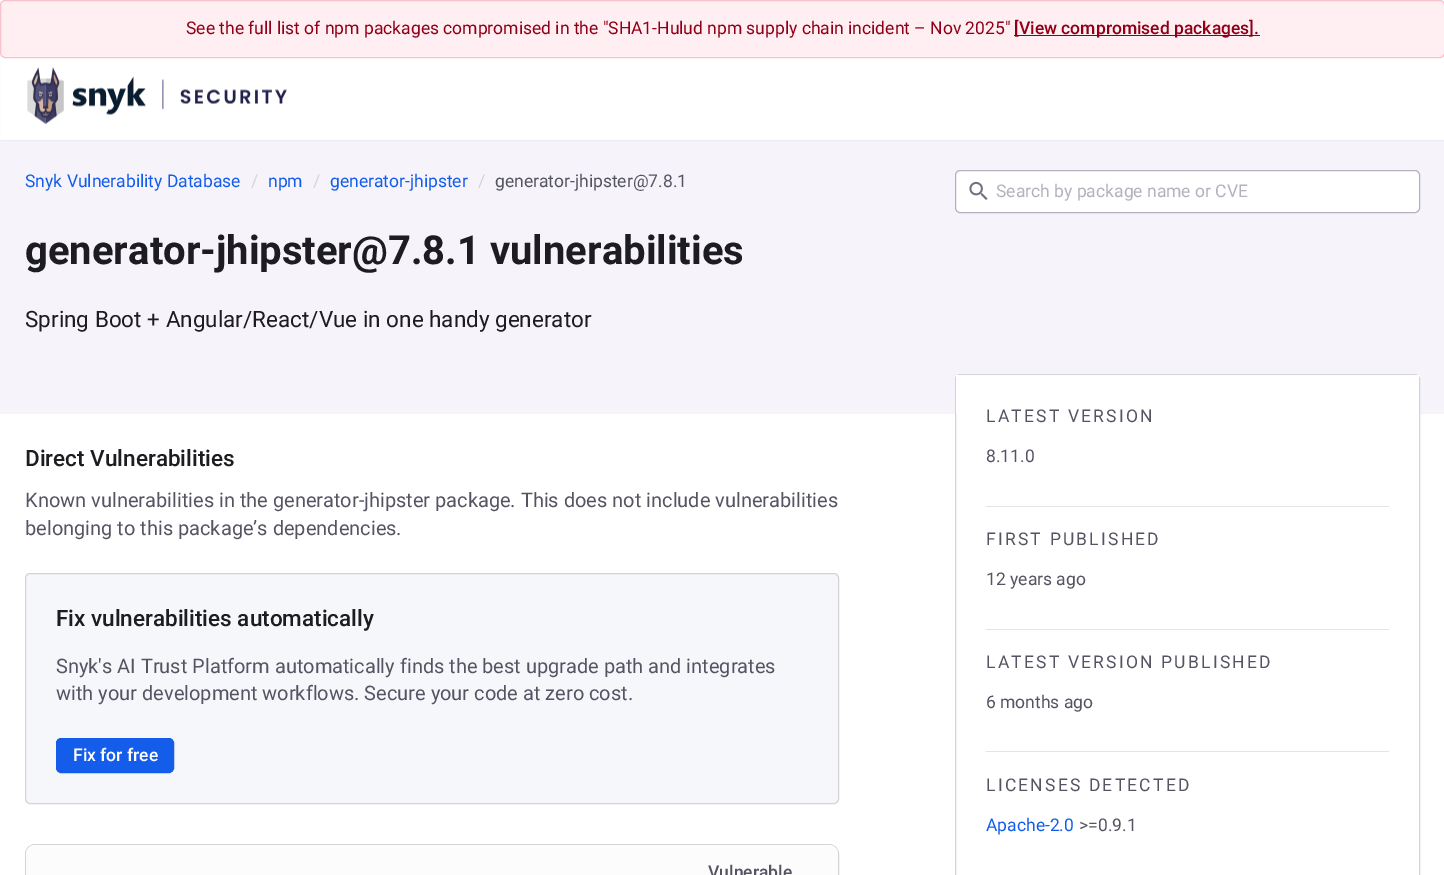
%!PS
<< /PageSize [1444 875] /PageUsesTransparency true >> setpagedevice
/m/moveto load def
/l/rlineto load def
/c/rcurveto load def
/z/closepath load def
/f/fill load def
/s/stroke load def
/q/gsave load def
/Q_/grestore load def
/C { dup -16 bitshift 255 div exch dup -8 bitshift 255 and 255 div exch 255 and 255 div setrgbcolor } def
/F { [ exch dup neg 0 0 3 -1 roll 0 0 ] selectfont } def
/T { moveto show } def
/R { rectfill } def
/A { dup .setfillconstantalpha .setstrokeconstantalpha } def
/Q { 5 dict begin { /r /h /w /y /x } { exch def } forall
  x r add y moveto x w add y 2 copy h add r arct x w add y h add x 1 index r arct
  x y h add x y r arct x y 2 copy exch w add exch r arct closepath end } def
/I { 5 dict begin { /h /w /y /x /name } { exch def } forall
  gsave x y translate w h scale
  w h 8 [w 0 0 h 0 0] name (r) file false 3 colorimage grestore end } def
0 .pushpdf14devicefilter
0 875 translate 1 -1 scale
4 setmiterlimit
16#FFFFFF C
0 0 1444 875 R
16#F6F4FA C
0 140 1444 274 R
0.04 A
16#0E3F7E C
-.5 -.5 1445 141 rectstroke
1 A
16#FFEEF2 C
.5 .5 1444 57 4.5 Q q f Q_
16#FAC0CB C
s
/Roboto-Regular 17.5 F
16#8F0018 C
(See the full list of npm packages compromised in the "SHA1-Hulud npm supply chain incident – Nov 2025") 186 34 T
1014 35 246 1 R
/Roboto-Medium 17.5 F
([View compromised packages].) 1014 34 T
(1.rgb) 27 67 260 58 I
/Roboto-Regular 17.5 F
16#145DEB C
(Snyk Vulnerability Database) 25 187 T
16#D3D3D9 C
(/) 251 187 T
16#145DEB C
(npm) 268 187 T
16#D3D3D9 C
(/) 313 187 T
16#145DEB C
(generator-jhipster) 330 187 T
16#D3D3D9 C
(/) 478 187 T
16#555463 C
(generator-jhipster@7.8.1) 495 187 T
16#FFFFFF C
955.5 170.5 464 42 4.5 Q q f Q_
16#B3B2BD C
s
(2.rgb) 969 181 19 19 I
(Search by package name or CVE) 996 197 T
/Roboto-Bold 40 F
16#1C1C21 C
(generator-jhipster@7.8.1 vulnerabilities) 25 264 T
/Roboto-Regular 22.5 F
(Spring Boot + Angular/React/Vue in one handy generator) 25 327 T
/Roboto-Medium 22.5 F
(Direct Vulnerabilities) 25 466 T
/Roboto-Regular 20 F
16#555463 C
(Known vulnerabilities in the generator-jhipster package. This does not include vulnerabilities) 25 507 T
(belonging to this package’s dependencies.) 25 535 T
16#F6F7FB C
25.5 573.5 813 230 4.5 Q q f Q_
16#D3D3D9 C
s
/Roboto-Medium 22.5 F
16#1C1C21 C
(Fix vulnerabilities automatically) 56 626 T
/Roboto-Regular 20 F
16#555463 C
(Snyk's AI Trust Platform automatically finds the best upgrade path and integrates) 56 673 T
(with your development workflows. Secure your code at zero cost.) 56 700 T
16#145DEB C
56.5 738.5 117 34 4.5 Q q f Q_
s
/Roboto-Medium 17.5 F
16#FFFFFF C
(Fix for free) 73 761 T
16#D3D3D9 C
25.5 844.5 813 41 9.5 Q s
16#FCFCFD C
35 845 m 663 0 l 0 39 l -672 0 l 0 -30 l 0 -5 4 -9 9 -9 c z f
698 845 m 131 0 l 5 0 9 4 9 9 c 0 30 l -140 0 l z f
16#555463 C
(Vulnerable) 708 878 T
16#D3D3D9 C
955.5 374.5 464 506 4.5 Q s
16#FFFFFF C
956 375 463 39 R
16#E4E3E8 C
986 506 403 1 R
/Roboto-Regular 17.5 F
16#555463 C
986 422 m 2.2 0 (LATEST VERSION) ashow
(8.11.0) 986 462 T
16#E4E3E8 C
986 629 403 1 R
16#555463 C
986 545 m 2.2 0 (FIRST PUBLISHED) ashow
(12 years ago) 986 585 T
16#E4E3E8 C
986 751 403 1 R
16#555463 C
986 668 m 2.2 0 (LATEST VERSION PUBLISHED) ashow
(6 months ago) 986 708 T
986 791 m 2.2 0 (LICENSES DETECTED) ashow
16#145DEB C
(Apache-2.0) 986 831 T
16#555463 C
(>=0.9.1) 1079 831 T
.poppdf14devicefilter showpage
